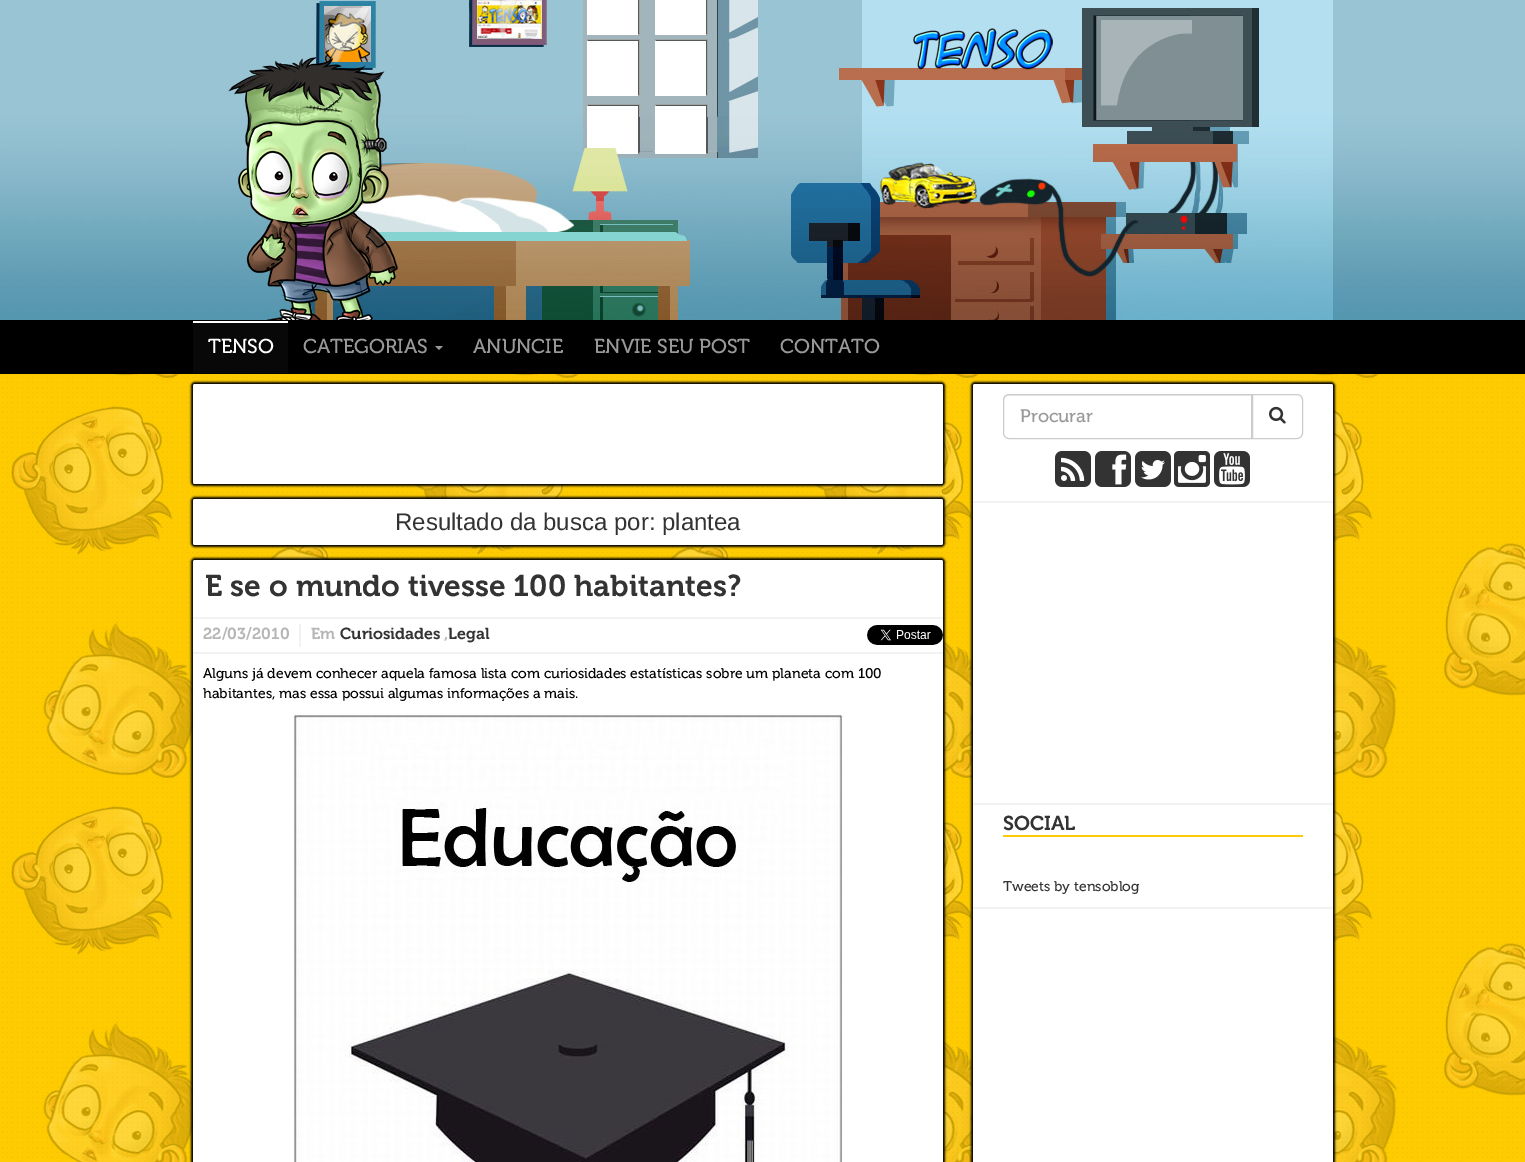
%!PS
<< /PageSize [1525 1162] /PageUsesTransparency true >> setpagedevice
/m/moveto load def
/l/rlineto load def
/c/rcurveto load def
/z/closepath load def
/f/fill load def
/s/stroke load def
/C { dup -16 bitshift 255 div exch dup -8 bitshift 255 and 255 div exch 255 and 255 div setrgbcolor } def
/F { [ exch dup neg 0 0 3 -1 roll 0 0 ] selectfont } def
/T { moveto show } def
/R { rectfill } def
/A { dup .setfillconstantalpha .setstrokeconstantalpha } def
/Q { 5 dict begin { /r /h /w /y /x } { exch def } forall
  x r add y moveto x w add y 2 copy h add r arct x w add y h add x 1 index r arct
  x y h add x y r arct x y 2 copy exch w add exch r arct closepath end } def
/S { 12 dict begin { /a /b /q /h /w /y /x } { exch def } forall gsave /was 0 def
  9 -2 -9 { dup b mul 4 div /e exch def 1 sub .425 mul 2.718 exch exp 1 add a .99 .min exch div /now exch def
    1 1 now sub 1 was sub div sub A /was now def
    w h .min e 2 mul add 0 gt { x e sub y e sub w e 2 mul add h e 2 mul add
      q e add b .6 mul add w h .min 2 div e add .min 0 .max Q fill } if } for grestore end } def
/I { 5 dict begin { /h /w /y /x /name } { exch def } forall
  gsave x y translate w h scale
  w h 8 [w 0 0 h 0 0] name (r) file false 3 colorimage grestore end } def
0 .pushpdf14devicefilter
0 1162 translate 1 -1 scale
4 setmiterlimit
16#FFFFFF C
0 0 1525 1162 R
(1.rgb) 0 374 1525 788 I
(2.rgb) 0 0 1525 320 I
(3.rgb) 282 0 1051 320 I
(4.rgb) 913 28 140 42 I
(5.rgb) 228 57 170 263 I
16#000000 C
0 320 1525 54 R
16#FFFFFF C
193 321 95 2 R
16#080808 C
193 323 95 50 R
/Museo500-Regular 20 F
16#FFFFFF C
(TENSO) 208 353 T
16#999999 C
(CATEGORIAS) 303 353 T
435 346 m 8 0 l -4 4 l z f
(ANUNCIE) 473 353 T
(ENVIE SEU POST) 594 353 T
(CONTATO) 780 353 T
16#000000 C
191 382 754 104 4 1 1 S
16#FFFFFF C
193 384 750 100 2 Q f
16#000000 C
191 497 754 50 4 1 1 S
16#FFFFFF C
193 499 750 46 2 Q f
/LiberationSans-Regular 24 F
16#333333 C
(Resultado da busca por: plantea) 395 530 T
16#000000 C
191 558 754 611 4 1 1 S
16#FFFFFF C
193 560 750 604 2 Q f
/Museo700-Regular 30 F
16#333333 C
(E se o mundo tivesse 100 habitantes?) 205 596 T
16#F2F2F2 C
193 617 750 2 R
193 652 750 2 R
299 624 2 23 R
/Museo700-Regular 16 F
16#B6B6B6 C
(22/03/2010) 203 639 T
(Em) 311 639 T
16#333333 C
(Curiosidades) 340 639 T
16#B6B6B6 C
(,) 444 639 T
16#333333 C
(Legal) 448 639 T
(6.rgb) 867 625 76 20 I
/Museo500-Regular 14 F
16#000000 C
(Alguns já devem conhecer aquela famosa lista com curiosidades estatísticas sobre um planeta com 100) 203 678 T
(habitantes, mas essa possui algumas informações a mais.) 203 698 T
(7.rgb) 293 714 550 448 I
971 382 364 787 4 1 1 S
16#FFFFFF C
973 384 360 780 2 Q f
16#F2F2F2 C
973 501 360 2 R
16#ECECEC C
1009 396 m 242 0 l 0 -1 l -242 0 l -3 0 -5 2 -5 5 c 0 1 l 0 -3 2 -5 5 -5 c z f
16#CCCCCC C
1009 394.5 m 242.5 0 l 0 44 l -242.5 0 l -3 0 -5.5 -2.5 -5.5 -5.5 c 0 -33 l 0 -3 2.5 -5.5 5.5 -5.5 c z s
/Museo500-Regular 18 F
16#999999 C
(Procurar) 1020 422 T
16#CCCCCC C
1252.5 394.5 m 44.5 0 l 3 0 5.5 2.5 5.5 5.5 c 0 33 l 0 3 -2.5 5.5 -5.5 5.5 c -44.5 0 l z s
(8.rgb) 1269 406 17 18 I
(9.rgb) 1055 451 36 36 I
(10.rgb) 1095 451 36 36 I
(11.rgb) 1135 451 36 36 I
(12.rgb) 1174 451 36 36 I
(13.rgb) 1214 451 36 36 I
16#F2F2F2 C
973 803 360 2 R
973 907 360 2 R
16#FECA04 C
1003 835 300 2 R
/Museo700-Regular 20 F
16#333333 C
(SOCIAL) 1003 830 T
/Museo500-Regular 14 F
(Tweets by tensoblog) 1003 891 T
.poppdf14devicefilter showpage
